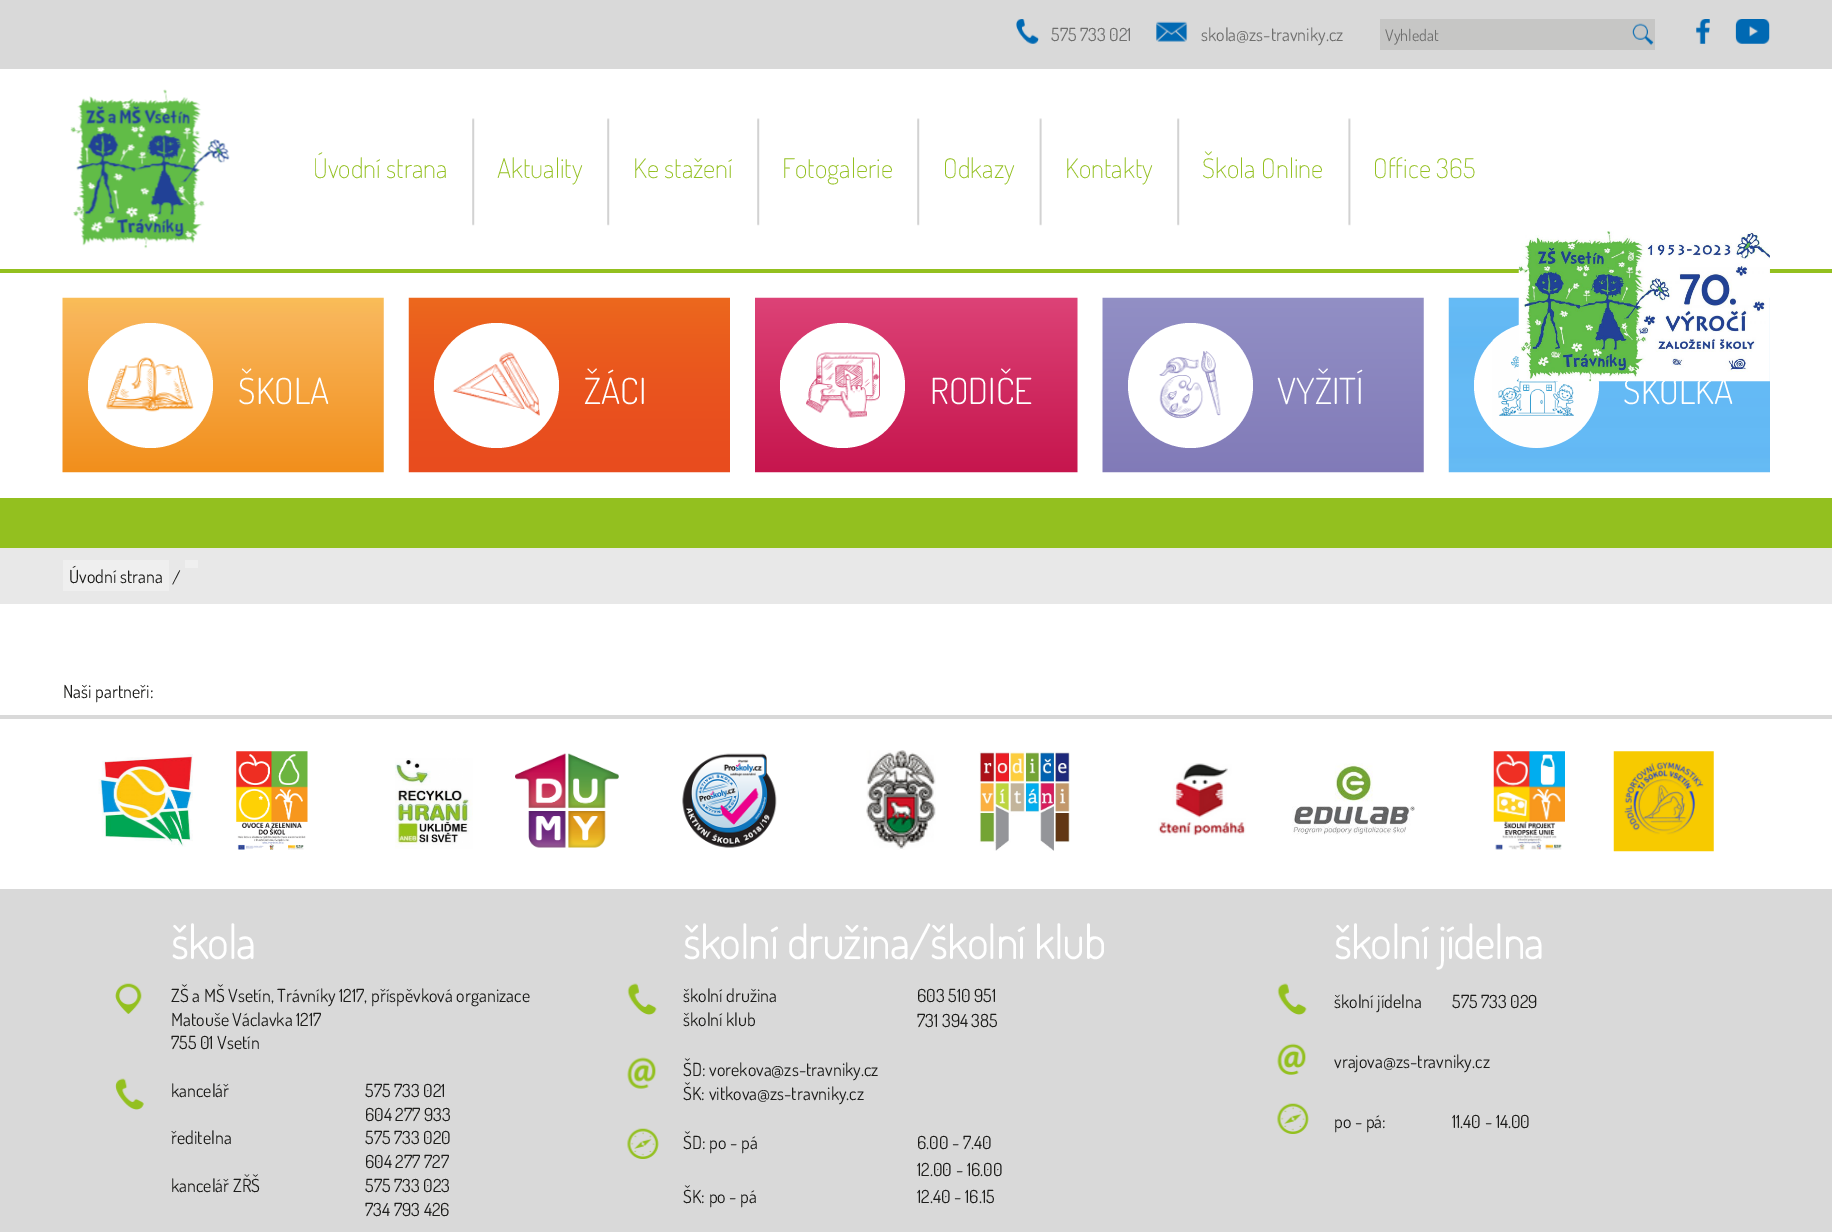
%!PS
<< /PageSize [1832 1232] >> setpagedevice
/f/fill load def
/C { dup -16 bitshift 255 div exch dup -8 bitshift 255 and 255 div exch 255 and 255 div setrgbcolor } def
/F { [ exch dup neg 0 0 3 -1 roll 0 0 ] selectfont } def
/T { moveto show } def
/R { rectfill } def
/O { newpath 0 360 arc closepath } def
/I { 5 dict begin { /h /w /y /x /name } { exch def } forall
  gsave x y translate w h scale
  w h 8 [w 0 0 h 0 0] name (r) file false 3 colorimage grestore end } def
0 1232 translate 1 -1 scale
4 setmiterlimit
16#FFFFFF C
0 0 1832 1232 R
16#D9D9D9 C
0 0 1832 69 R
(1.rgb) 1016 19 23 25 I
/Dosis-Regular 18 F
16#6F6F6E C
(575 733 021) 1051 41 T
(2.rgb) 1156 21 32 21 I
(skola@zs-travniky.cz) 1201 41 T
16#C6C6C5 C
1380 19 275 31 R
/Dosis-Regular 16 F
16#6F6F6E C
(Vyhledat) 1385 41 T
(3.rgb) 1632 23 22 23 I
(4.rgb) 1696 19 14 25 I
(5.rgb) 1735 19 35 25 I
16#93C01F C
0 269 1832 4 R
(6.rgb) 70 89 160 160 I
/Dosis-ExtraLight 27 F
(Úvodní strana) 313 178 T
(7.rgb) 472 118 3 108 I
(Aktuality) 497 178 T
(7.rgb) 607 118 3 108 I
(Ke stažení) 633 178 T
(7.rgb) 757 118 3 108 I
(Fotogalerie) 782 178 T
(7.rgb) 917 118 3 108 I
(Odkazy) 943 178 T
(8.rgb) 1039 118 3 108 I
(Kontakty) 1065 178 T
(7.rgb) 1177 118 3 108 I
(Škola Online) 1202 178 T
(9.rgb) 1348 118 3 108 I
(Office 365) 1373 178 T
(19.rgb) 1448 297 322 176 I
16#FFFFFF C
1536.5 385.5 62.5 O f
(20.rgb) 1492 324 88 124 I
/Dosis-Light 36 F
(ŠKOLKA) 1623 404 T
(10.rgb) 1518 231 252 151 I
(11.rgb) 62 297 322 176 I
150.5 385.5 62.5 O f
(12.rgb) 106 357 88 55 I
(ŠKOLA) 238 404 T
(13.rgb) 408 297 322 176 I
496.5 385.5 62.5 O f
(14.rgb) 452 352 88 64 I
(ŽÁCI) 584 404 T
(15.rgb) 755 297 323 176 I
842.5 385.5 62.5 O f
(16.rgb) 806 352 74 66 I
(RODIČE) 930 404 T
(17.rgb) 1102 297 322 176 I
1190.5 385.5 62.5 O f
(18.rgb) 1159 351 62 68 I
(VYŽITÍ) 1277 404 T
16#93C01F C
0 498 1832 50 R
16#E8E8E8 C
0 548 1832 56 R
16#EFEFEF C
185 560 13 8 R
63 560 106 31 R
/Dosis-Regular 18 F
16#1D1D1B C
(Úvodní strana) 69 583 T
(/) 172 584 T
16#D9D9D9 C
0 715 1832 4 R
16#1D1D1B C
(Naši partneři:) 63 698 T
(21.rgb) 98 754 95 93 I
(22.rgb) 236 751 72 99 I
(23.rgb) 395 758 78 91 I
(24.rgb) 515 753 104 95 I
(25.rgb) 682 753 95 95 I
(26.rgb) 866 750 70 100 I
(27.rgb) 979 751 91 100 I
(28.rgb) 1158 763 88 73 I
(29.rgb) 1292 763 123 72 I
(30.rgb) 1493 751 72 99 I
(31.rgb) 1613 751 101 101 I
16#D9D9D9 C
0 889 1832 343 R
/Dosis-Bold 45 F
16#FFFFFF C
(škola) 171 959 T
(32.rgb) 115 983 27 31 I
/Dosis-Regular 18 F
16#1D1D1B C
(ZŠ a MŠ Vsetín, Trávníky 1217, příspěvková organizace) 171 1002 T
(Matouše Václavka 1217) 171 1026 T
(755 01 Vsetín) 171 1049 T
(33.rgb) 115 1078 29 32 I
(kancelář) 171 1097 T
(575 733 021) 365 1097 T
(604 277 933) 365 1121 T
(ředitelna) 171 1144 T
(575 733 020) 365 1144 T
(604 277 727) 365 1168 T
(kancelář ZŘŠ) 171 1192 T
(575 733 023) 365 1192 T
(734 793 426) 365 1216 T
/Dosis-Bold 45 F
16#FFFFFF C
(školní družina/školní klub) 683 959 T
(34.rgb) 627 983 30 32 I
/Dosis-Regular 18 F
16#1D1D1B C
(školní družina) 683 1002 T
(603 510 951) 917 1002 T
(školní klub) 683 1026 T
(731 394 385) 917 1027 T
(35.rgb) 627 1057 29 32 I
(ŠD: vorekova@zs-travniky.cz) 683 1076 T
(ŠK: vitkova@zs-travniky.cz) 683 1100 T
(36.rgb) 627 1128 32 31 I
(ŠD: po - pá) 683 1149 T
(ŠK: po - pá) 683 1203 T
(6.00 - 7.40) 917 1149 T
(12.00 - 16.00) 917 1176 T
(12.40 - 16.15) 917 1203 T
/Dosis-Bold 45 F
16#FFFFFF C
(školní jídelna) 1334 959 T
(34.rgb) 1277 983 30 32 I
/Dosis-Regular 18 F
16#1D1D1B C
(školní jídelna) 1334 1008 T
(575 733 029) 1452 1008 T
(37.rgb) 1277 1043 29 32 I
(vrajova@zs-travniky.cz) 1334 1068 T
(36.rgb) 1277 1103 32 31 I
(po - pá:) 1334 1128 T
(11.40 - 14.00) 1452 1128 T
showpage
